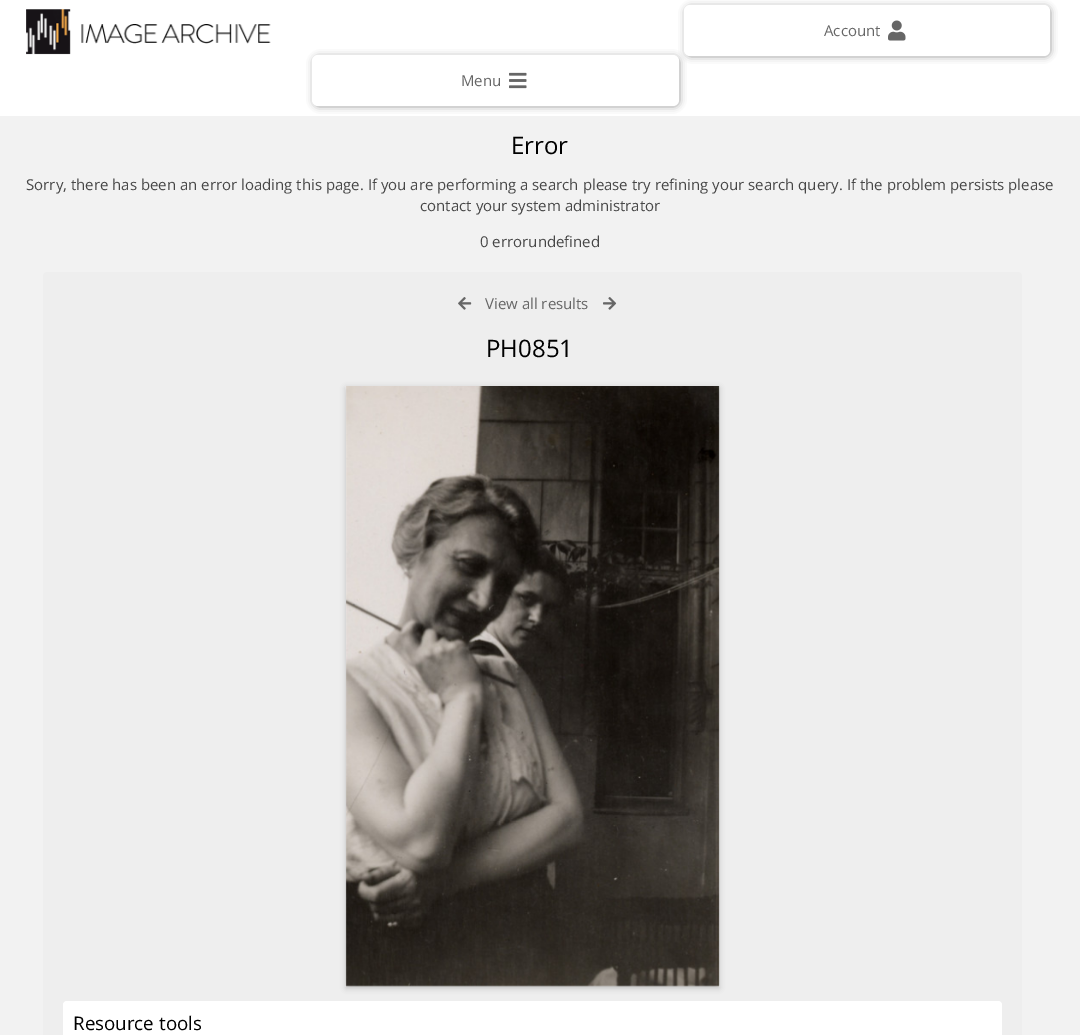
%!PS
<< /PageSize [1080 1035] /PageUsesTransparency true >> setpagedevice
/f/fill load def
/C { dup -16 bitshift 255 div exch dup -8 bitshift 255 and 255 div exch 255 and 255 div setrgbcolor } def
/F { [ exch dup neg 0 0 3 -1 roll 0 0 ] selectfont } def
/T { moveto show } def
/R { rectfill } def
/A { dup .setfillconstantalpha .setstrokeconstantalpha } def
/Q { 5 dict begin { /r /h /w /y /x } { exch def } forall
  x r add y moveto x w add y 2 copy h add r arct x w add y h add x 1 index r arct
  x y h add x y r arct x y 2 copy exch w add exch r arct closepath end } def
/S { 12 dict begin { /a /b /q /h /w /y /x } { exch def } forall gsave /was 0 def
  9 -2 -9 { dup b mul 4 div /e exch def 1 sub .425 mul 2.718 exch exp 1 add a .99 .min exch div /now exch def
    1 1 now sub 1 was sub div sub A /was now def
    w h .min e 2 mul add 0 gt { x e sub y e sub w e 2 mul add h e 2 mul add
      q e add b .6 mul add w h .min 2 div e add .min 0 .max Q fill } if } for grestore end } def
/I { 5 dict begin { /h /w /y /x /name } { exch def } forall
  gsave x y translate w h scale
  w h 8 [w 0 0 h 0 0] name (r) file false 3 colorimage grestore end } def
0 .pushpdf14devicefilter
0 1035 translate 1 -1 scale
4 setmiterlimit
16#F2F2F2 C
0 0 1080 1035 R
16#FFFFFF C
0 0 1080 116 R
(1.rgb) 26 9 245 46 I
16#666666 C
687 8 362 47 4 4 1 S
16#FFFFFF C
684 5 366 51 6 Q f
/OpenSans-Regular 15 F
16#666666 C
(Account) 824 36 T
(2.rgb) 888 20 18 21 I
315 58 363 47 4 4 1 S
16#FFFFFF C
312 55 367 51 6 Q f
16#666666 C
(Menu) 461 86 T
(3.rgb) 509 72 18 17 I
/OpenSans-Regular 24 F
16#000000 C
(Error) 511 154 T
/OpenSans-Regular 15 F
16#474747 C
(Sorry, there has been an error loading this page. If you are performing a search please try refining your search query. If the problem persists please) 26 190 T
(contact your system administrator) 420 211 T
(0 errorundefined) 480 247 T
16#EEEEEE C
43 272 979 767 4 Q f
(4.rgb) 458 297 14 13 I
16#666666 C
(View all results) 485 309 T
(5.rgb) 603 297 14 13 I
/OpenSans-Regular 24 F
16#000000 C
(PH0851) 486 357 T
346 388 373 600 0 3 .2 S
(6.rgb) 345 386 375 601 I
16#FFFFFF C
63 1001 939 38 4 Q f
/OpenSans-Regular 18.75 F
16#000000 C
(Resource tools) 73 1030 T
.poppdf14devicefilter showpage
